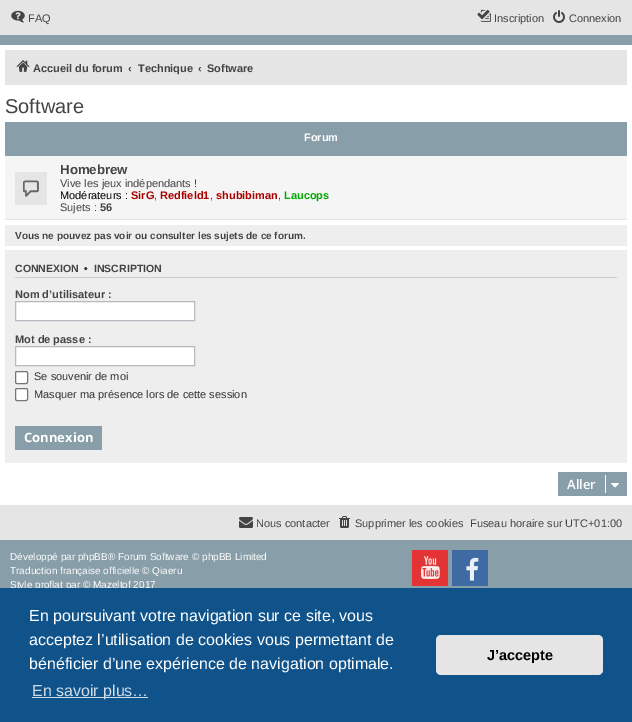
%!PS
<< /PageSize [632 722] >> setpagedevice
/m/moveto load def
/l/rlineto load def
/z/closepath load def
/f/fill load def
/s/stroke load def
/q/gsave load def
/Q_/grestore load def
/C { dup -16 bitshift 255 div exch dup -8 bitshift 255 and 255 div exch 255 and 255 div setrgbcolor } def
/F { [ exch dup neg 0 0 3 -1 roll 0 0 ] selectfont } def
/T { moveto show } def
/R { rectfill } def
/Q { 5 dict begin { /r /h /w /y /x } { exch def } forall
  x r add y moveto x w add y 2 copy h add r arct x w add y h add x 1 index r arct
  x y h add x y r arct x y 2 copy exch w add exch r arct closepath end } def
/I { 5 dict begin { /h /w /y /x /name } { exch def } forall
  gsave x y translate w h scale
  w h 8 [w 0 0 h 0 0] name (r) file false 3 colorimage grestore end } def
0 722 translate 1 -1 scale
4 setmiterlimit
16#FFFFFF C
0 0 632 722 R
16#E5E5E5 C
0 0 632 35 R
(1.rgb) 11 10 14 13 I
/LiberationSans-Regular 11 F
16#444444 C
(FAQ) 28 22 T
(2.rgb) 477 9 14 13 I
(Inscription) 494 22 T
(3.rgb) 553 10 12 13 I
(Connexion) 569 22 T
16#889EA8 C
0 35 632 10 R
16#E5E5E5 C
5 50 622 35 R
(4.rgb) 16 60 14 12 I
/LiberationSans-Bold 11 F
16#444444 C
(Accueil du forum) 33 72 T
(‹) 128 72 T
(Technique) 138 72 T
(‹) 198 72 T
(Software) 207 72 T
/LiberationSans-Regular 20 F
(Software) 5 113 T
16#889EA8 C
5 122 622 34 R
/LiberationSans-Bold 11 F
16#FFFFFF C
(Forum) 304 141 T
16#F5F5F5 C
5 156 622 63 R
16#E5E5E5 C
5 219 622 1 R
15 172 32 33 R
(5.rgb) 23 180 16 17 I
/LiberationSans-Bold 13.25 F
16#444444 C
(Homebrew) 60 174 T
/LiberationSans-Regular 11 F
(Vive les jeux indépendants !) 60 187 T
16#000000 C
(Modérateurs :) 60 199 T
/LiberationSans-Bold 11 F
16#AA0000 C
(SirG) 131 199 T
/LiberationSans-Regular 11 F
16#444444 C
(,) 154 199 T
/LiberationSans-Bold 11 F
16#AA0000 C
(Redfield1) 160 199 T
/LiberationSans-Regular 11 F
16#444444 C
(,) 210 199 T
/LiberationSans-Bold 11 F
16#AA0000 C
(shubibiman) 216 199 T
/LiberationSans-Regular 11 F
16#444444 C
(,) 278 199 T
/LiberationSans-Bold 11 F
16#00AA00 C
(Laucops) 284 199 T
/LiberationSans-Regular 11 F
16#444444 C
(Sujets :) 60 211 T
/LiberationSans-Bold 11 F
(56) 100 211 T
16#EEEEEE C
5 225 622 21 R
/LiberationSans-Bold 10 F
16#444444 C
(Vous ne pouvez pas voir ou consulter les sujets de ce forum.) 15 239 T
16#EEEEEE C
5 250 622 213 R
16#CCCCCC C
15 277 602 1 R
/LiberationSans-Bold 10.5 F
16#444444 C
(CONNEXION) 15 272 T
16#333333 C
(•) 84 272 T
16#444444 C
(INSCRIPTION) 94 272 T
/LiberationSans-Bold 11 F
(Nom d’utilisateur :) 15 298 T
16#FFFFFF C
15.5 301.5 m 179 0 l 0 19 l -179 0 l z q f Q_
16#B4BAC0 C
s
16#444444 C
(Mot de passe :) 15 343 T
16#FFFFFF C
15.5 346.5 m 179 0 l 0 19 l -179 0 l z q f Q_
16#B4BAC0 C
s
16#FFFFFF C
15.5 371.5 12 12 1.5 Q q f Q_
16#767676 C
s
/LiberationSans-Regular 11 F
16#333333 C
(Se souvenir de moi) 34 380 T
16#FFFFFF C
15.5 388.5 12 12 1.5 Q q f Q_
16#767676 C
s
16#333333 C
(Masquer ma présence lors de cette session) 34 398 T
16#889EA8 C
15 426 87 24 R
/OpenSans-Bold 13 F
16#FFFFFF C
(Connexion) 24 442 T
16#889EA8 C
558 472 69 24 R
/OpenSans-SemiBold 13 F
16#FFFFFF C
(Aller) 567 489 T
605 475 1 18 R
(6.rgb) 611 483 8 5 I
16#E5E5E5 C
0 505 632 35 R
(7.rgb) 239 517 14 11 I
/LiberationSans-Regular 11 F
16#444444 C
(Nous contacter) 256 527 T
(8.rgb) 339 516 11 12 I
(Supprimer les cookies) 355 527 T
(Fuseau horaire sur UTC+01:00) 470 527 T
16#889EA8 C
0 540 632 48 R
/LiberationSans-Regular 10 F
16#FFFFFF C
(Développé par phpBB® Forum Software © phpBB Limited) 10 560 T
(Traduction française officielle © Qiaeru) 10 574 T
(Style proflat par © Mazeltof 2017) 10 588 T
16#E23435 C
412 550 36 36 R
(9.rgb) 421 556 19 23 I
16#3F6BA4 C
452 550 36 36 R
(10.rgb) 466 557 13 24 I
16#0F538A C
0 588 632 134 R
/LiberationSans-Regular 16 F
16#FFFFFF C
(En poursuivant votre navigation sur ce site, vous) 29 621 T
(acceptez l’utilisation de cookies vous permettant de) 29 645 T
(bénéficier d’une expérience de navigation optimale.) 29 669 T
16#CFDDE8 C
32 697 116 1 R
(En savoir plus…) 32 696 T
16#E5E5E5 C
436 635 167 40 5 Q f
/LiberationSans-Bold 14.5 F
16#000000 C
(J’accepte) 487 660 T
showpage
